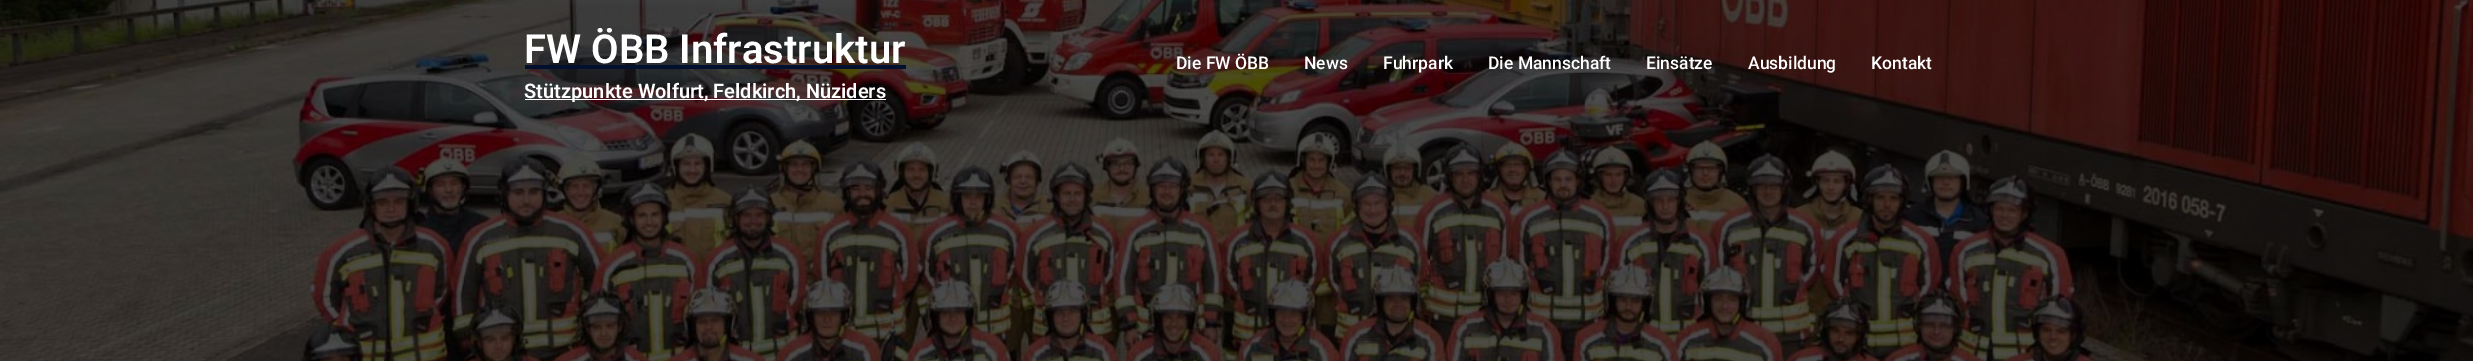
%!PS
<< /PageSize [2473 361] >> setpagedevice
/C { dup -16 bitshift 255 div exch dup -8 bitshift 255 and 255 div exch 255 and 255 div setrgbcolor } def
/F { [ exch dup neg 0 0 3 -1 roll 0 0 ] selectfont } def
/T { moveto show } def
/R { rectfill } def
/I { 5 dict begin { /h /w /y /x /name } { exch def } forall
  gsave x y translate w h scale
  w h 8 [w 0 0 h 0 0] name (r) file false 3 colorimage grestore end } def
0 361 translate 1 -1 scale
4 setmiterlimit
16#FFFFFF C
0 0 2473 361 R
(1.rgb) 0 0 2473 361 I
/Roboto-SemiBold 40 F
(FW ÖBB Infrastruktur) 524 63 T
16#00102E C
525 65 381 4 R
16#FFFFFF C
525 99 361 1 R
/Roboto-SemiBold 20 F
(Stützpunkte Wolfurt, Feldkirch, Nüziders) 524 98 T
/Roboto-Medium 17.5 F
(Die FW ÖBB) 1176 69 T
(News) 1304 69 T
(Fuhrpark) 1383 69 T
(Die Mannschaft) 1488 69 T
(Einsätze) 1646 69 T
(Ausbildung) 1748 69 T
(Kontakt) 1871 69 T
showpage
